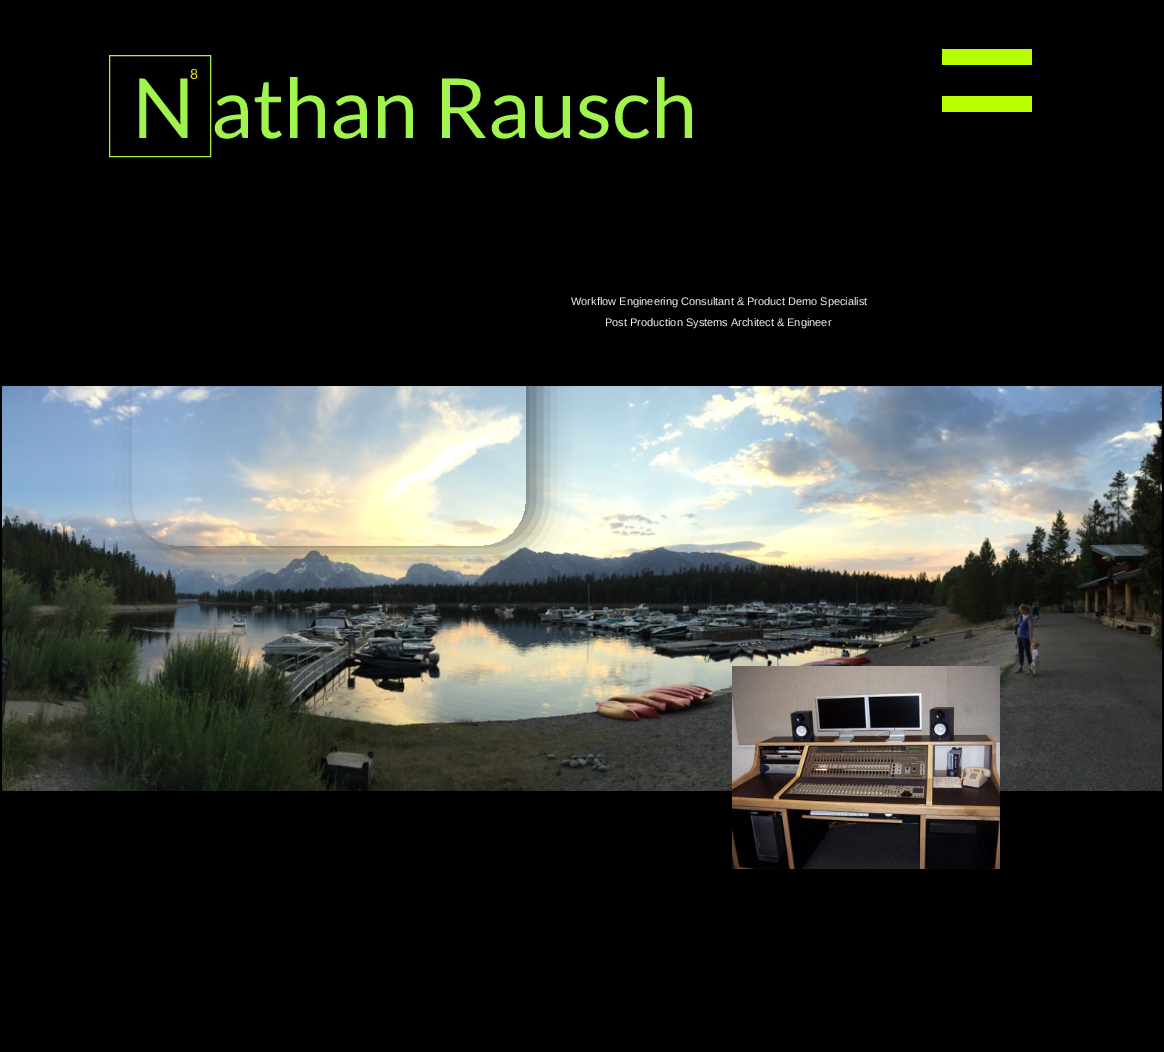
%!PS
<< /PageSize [1164 1052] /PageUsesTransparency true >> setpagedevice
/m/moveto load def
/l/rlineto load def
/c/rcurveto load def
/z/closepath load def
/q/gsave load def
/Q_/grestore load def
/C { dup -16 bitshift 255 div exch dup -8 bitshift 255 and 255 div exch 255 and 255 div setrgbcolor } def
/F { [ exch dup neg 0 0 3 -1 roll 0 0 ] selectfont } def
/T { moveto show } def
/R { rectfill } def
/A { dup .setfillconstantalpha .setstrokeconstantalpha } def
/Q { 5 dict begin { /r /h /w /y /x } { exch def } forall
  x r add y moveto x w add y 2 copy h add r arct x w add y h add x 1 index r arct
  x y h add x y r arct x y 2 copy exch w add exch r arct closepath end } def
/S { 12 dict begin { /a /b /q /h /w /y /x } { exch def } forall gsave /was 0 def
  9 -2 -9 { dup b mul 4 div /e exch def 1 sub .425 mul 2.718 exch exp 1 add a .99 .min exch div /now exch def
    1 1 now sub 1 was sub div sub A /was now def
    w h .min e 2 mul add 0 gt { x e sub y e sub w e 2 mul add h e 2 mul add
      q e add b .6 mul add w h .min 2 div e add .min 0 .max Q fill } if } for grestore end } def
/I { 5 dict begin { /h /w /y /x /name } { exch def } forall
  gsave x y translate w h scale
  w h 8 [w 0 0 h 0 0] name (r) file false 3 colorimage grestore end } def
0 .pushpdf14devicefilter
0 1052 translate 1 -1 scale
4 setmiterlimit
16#000000 C
0 0 1164 1052 R
16#A1F34D C
109.5 55.5 101 101 rectstroke
/Lato-Regular 14 F
16#EFDE07 C
(8) 190 79 T
16#B7FF00 C
942 49 90 16 R
942 96 90 16 R
/Lato-Regular 83 F
16#A1F34D C
(N athan Rausch) 132 138 T
(1.rgb) 2 386 1160 405 I
q
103 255 m 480 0 l 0 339 l -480 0 l z 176 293 m 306 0 l 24.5 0 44 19.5 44 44 c 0 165 l 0 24.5 -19.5 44 -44 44 c -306 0 l -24.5 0 -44 -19.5 -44 -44 c 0 -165 l 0 -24.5 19.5 -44 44 -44 c z eoclip newpath
16#000000 C
146 298 394 253 44 14 .43 S
Q_
/LiberationSans-Regular 11 F
16#F2F2F2 C
(Workflow Engineering Consultant & Product Demo Specialist) 571 305 T
(Post Production Systems Architect & Engineer) 605 326 T
(2.rgb) 732 666 268 203 I
.poppdf14devicefilter showpage
